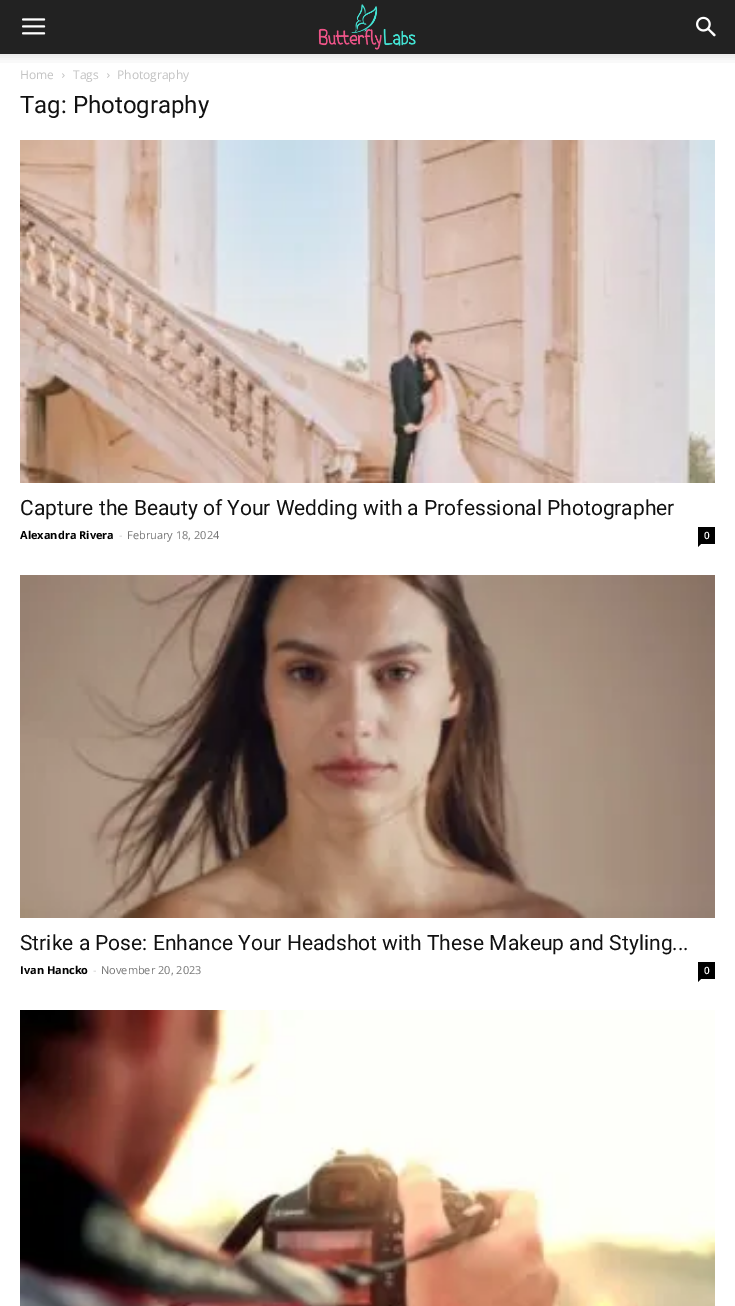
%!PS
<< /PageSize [735 1306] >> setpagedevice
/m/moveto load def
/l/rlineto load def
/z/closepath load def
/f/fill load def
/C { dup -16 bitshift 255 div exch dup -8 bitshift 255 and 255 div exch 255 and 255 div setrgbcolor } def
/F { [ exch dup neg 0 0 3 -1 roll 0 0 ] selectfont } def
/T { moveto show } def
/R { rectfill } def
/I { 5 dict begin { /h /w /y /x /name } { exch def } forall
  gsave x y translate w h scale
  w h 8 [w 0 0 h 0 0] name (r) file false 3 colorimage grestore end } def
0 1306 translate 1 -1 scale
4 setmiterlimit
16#FFFFFF C
0 0 735 1306 R
16#222222 C
0 0 735 54 R
(1.rgb) 22 18 24 17 I
(2.rgb) 318 4 98 46 I
(3.rgb) 696 16 20 21 I
(4.rgb) 0 54 735 9 I
/OpenSans-Regular 12 F
16#C3C3C3 C
(Home) 20 79 T
(5.rgb) 62 73 3 5 I
(Tags) 73 79 T
(5.rgb) 107 73 3 5 I
(Photography) 117 79 T
/Roboto-Regular 24 F
16#111111 C
(Tag: Photography) 20 113 T
(6.rgb) 20 140 695 343 I
/Roboto-Regular 21 F
(Capture the Beauty of Your Wedding with a Professional Photographer) 20 515 T
/OpenSans-Bold 11 F
16#000000 C
(Alexandra Rivera) 20 539 T
/OpenSans-Regular 11 F
16#CCCCCC C
(-) 119 539 T
16#767676 C
(February 18, 2024) 127 539 T
16#000000 C
698 527 17 17 R
/OpenSans-SemiBold 10 F
16#FFFFFF C
(0) 704 539 T
16#000000 C
698 544 m 3 0 l -3 3 l z f
(7.rgb) 20 575 695 343 I
/Roboto-Regular 21 F
16#111111 C
(Strike a Pose: Enhance Your Headshot with These Makeup and Styling...) 20 950 T
/OpenSans-Bold 11 F
16#000000 C
(Ivan Hancko) 20 974 T
/OpenSans-Regular 11 F
16#CCCCCC C
(-) 93 974 T
16#767676 C
(November 20, 2023) 101 974 T
16#000000 C
698 962 17 17 R
/OpenSans-SemiBold 10 F
16#FFFFFF C
(0) 704 974 T
16#000000 C
698 979 m 3 0 l -3 3 l z f
(8.rgb) 20 1010 695 296 I
showpage
